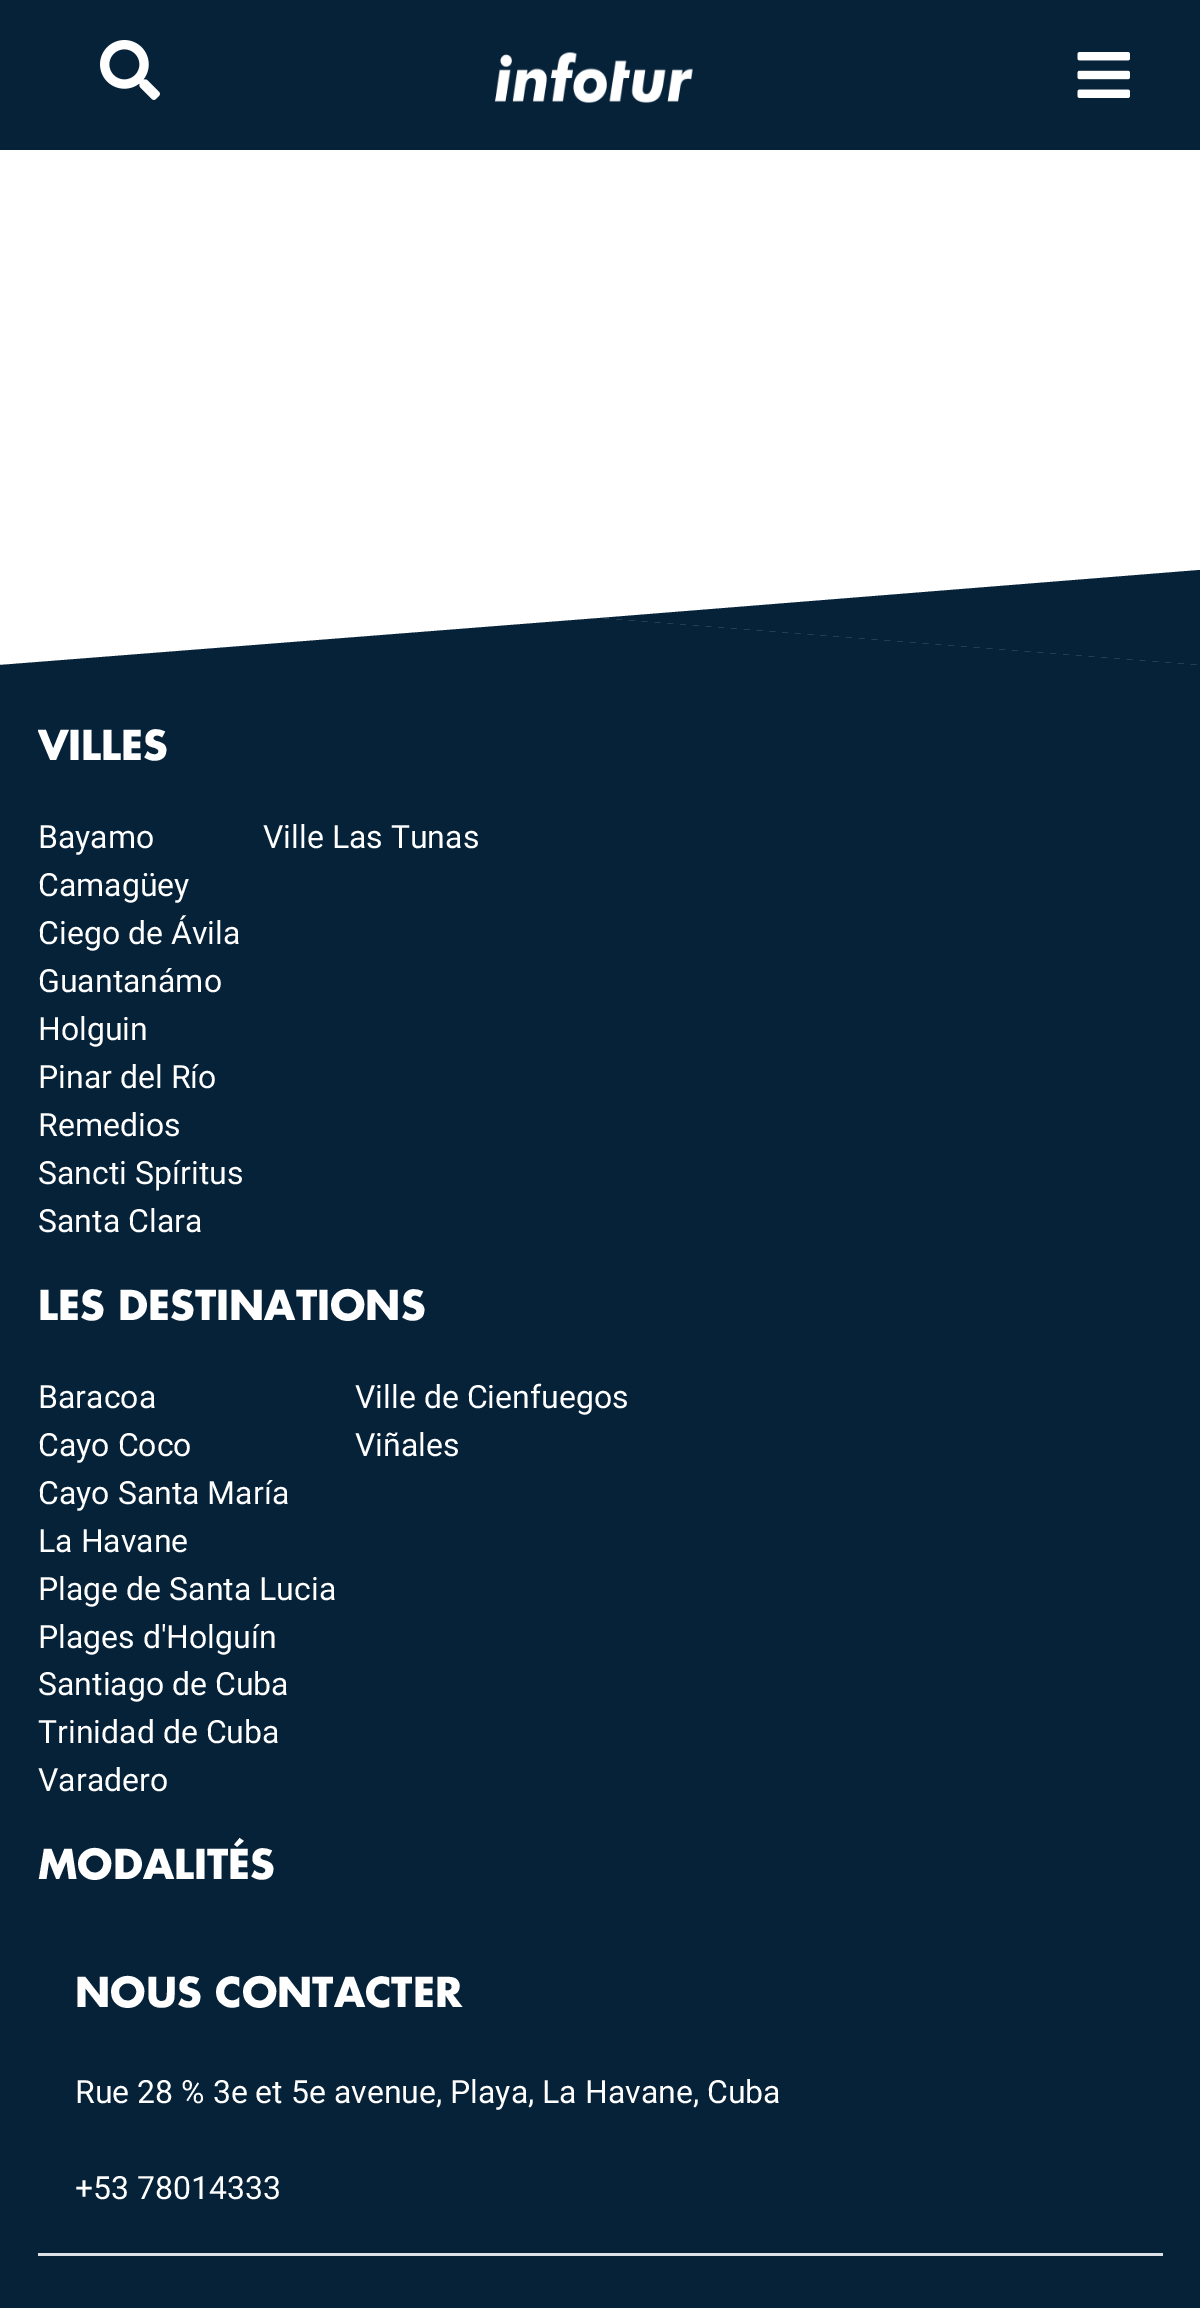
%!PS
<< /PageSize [1200 2308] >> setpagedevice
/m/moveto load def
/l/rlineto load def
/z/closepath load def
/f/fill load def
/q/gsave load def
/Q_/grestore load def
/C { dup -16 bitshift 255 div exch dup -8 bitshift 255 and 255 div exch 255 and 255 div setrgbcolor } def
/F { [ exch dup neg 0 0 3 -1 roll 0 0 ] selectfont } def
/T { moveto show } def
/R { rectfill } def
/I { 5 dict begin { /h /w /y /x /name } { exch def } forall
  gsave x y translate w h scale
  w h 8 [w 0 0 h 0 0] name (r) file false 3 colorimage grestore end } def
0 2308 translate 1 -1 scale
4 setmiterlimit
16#FFFFFF C
0 0 1200 2308 R
16#062239 C
0 0 1200 150 R
(1.rgb) 100 40 60 60 I
(2.rgb) 494 52 199 51 I
(3.rgb) 1077 52 53 46 I
0 665 1200 1643 R
1200 570 m 0 95 l -600 -47 l z f
1200 665 m -1200 0 l 600 -47 l z f
16#DEE2E6 C
38 2253 1125 3 R
q
38 665 1125 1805 rectclip
/Futura-Bold 40 F
16#FFFFFF C
(VILLES) 38 760 T
Q_
/Roboto-Regular 32 F
16#FFFFFF C
(Bayamo) 38 848 T
(Camagüey) 38 896 T
(Ciego de Ávila) 38 944 T
(Guantanámo) 38 992 T
(Holguin) 38 1040 T
(Pinar del Río) 38 1088 T
(Remedios) 38 1136 T
(Sancti Spíritus) 38 1184 T
(Santa Clara) 38 1232 T
(Ville Las Tunas) 263 848 T
/Futura-Bold 40 F
(LES DESTINATIONS) 38 1320 T
/Roboto-Regular 32 F
(Baracoa) 38 1408 T
(Cayo Coco) 38 1456 T
(Cayo Santa María) 38 1504 T
(La Havane) 38 1552 T
(Plage de Santa Lucia) 38 1600 T
(Plages d'Holguín) 38 1648 T
(Santiago de Cuba) 38 1695 T
(Trinidad de Cuba) 38 1743 T
(Varadero) 38 1791 T
(Ville de Cienfuegos) 355 1408 T
(Viñales) 355 1456 T
/Futura-Bold 40 F
(MODALITÉS) 38 1879 T
(NOUS CONTACTER) 75 2007 T
/Roboto-Regular 32 F
(Rue 28 % 3e et 5e avenue, Playa, La Havane, Cuba) 75 2103 T
(+53 78014333) 75 2199 T
showpage
